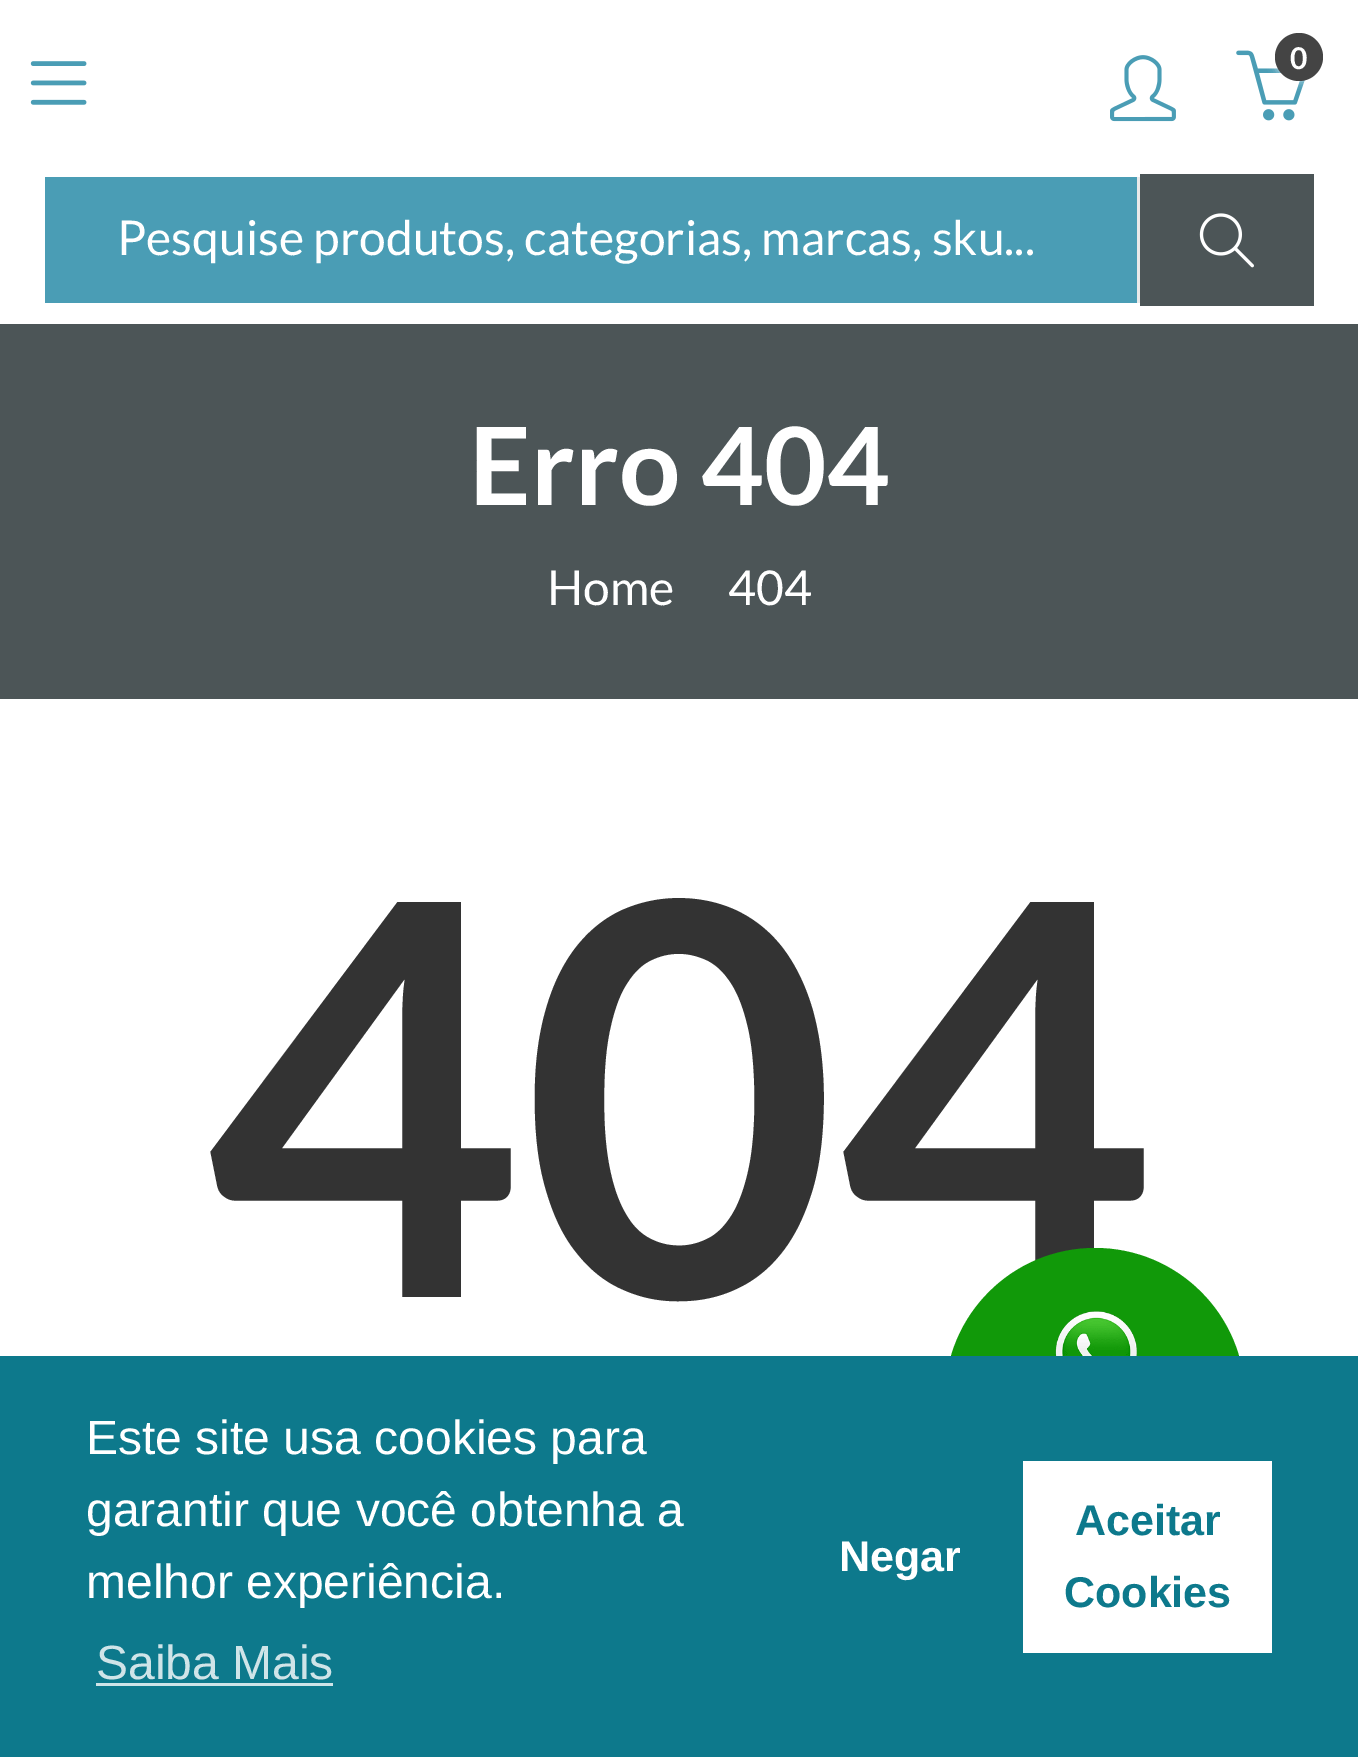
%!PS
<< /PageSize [1358 1757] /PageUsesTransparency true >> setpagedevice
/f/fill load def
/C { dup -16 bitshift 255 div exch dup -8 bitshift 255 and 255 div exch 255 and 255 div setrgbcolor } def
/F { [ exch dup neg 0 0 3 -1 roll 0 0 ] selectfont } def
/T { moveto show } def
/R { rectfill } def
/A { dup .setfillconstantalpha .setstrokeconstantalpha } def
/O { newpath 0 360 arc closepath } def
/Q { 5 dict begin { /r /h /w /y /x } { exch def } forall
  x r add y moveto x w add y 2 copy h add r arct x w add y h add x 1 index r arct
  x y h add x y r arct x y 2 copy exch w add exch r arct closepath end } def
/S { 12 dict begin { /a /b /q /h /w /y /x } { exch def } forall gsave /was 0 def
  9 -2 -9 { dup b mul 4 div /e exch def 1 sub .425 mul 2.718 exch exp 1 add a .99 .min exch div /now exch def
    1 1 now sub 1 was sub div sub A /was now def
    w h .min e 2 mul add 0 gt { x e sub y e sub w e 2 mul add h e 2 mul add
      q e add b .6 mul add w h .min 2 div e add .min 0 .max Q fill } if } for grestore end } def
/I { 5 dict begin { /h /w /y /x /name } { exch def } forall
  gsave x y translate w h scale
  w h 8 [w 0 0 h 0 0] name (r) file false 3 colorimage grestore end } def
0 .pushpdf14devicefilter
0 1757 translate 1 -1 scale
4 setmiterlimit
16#FFFFFF C
0 0 1358 1757 R
(1.rgb) 1110 55 66 67 I
(2.rgb) 1236 50 69 71 I
1275 33 48 48 24 4.5 .7 S
16#444444 C
1299 57 24 O f
/Lato-Bold 30 F
16#FFFFFF C
(0) 1290 69 T
(3.rgb) 30 61 57 44 I
16#4A9DB5 C
45 177 1092 126 R
16#E9E9E9 C
1137 177 3 126 R
/Lato-Regular 48 F
16#FFFFFF C
(Pesquise produtos, categorias, marcas, sku...) 117 255 T
16#4C5557 C
1140 174 174 132 R
(4.rgb) 1199 213 55 55 I
0 324 1358 375 R
/Lato-Bold 108 F
16#FFFFFF C
(Erro 404) 469 505 T
/Lato-Regular 48 F
(Home) 547 605 T
(404) 728 605 T
/Lato-Bold 546 F
16#333333 C
(404) 204 1297 T
16#119909 C
1095 1398 150 O f
(5.rgb) 1055 1311 82 45 I
16#0D798C C
0 1356 1358 401 R
/LiberationSans-Regular 48 F
16#FFFFFF C
(Este site usa cookies para) 86 1454 T
(garantir que você obtenha a) 86 1526 T
(melhor experiência.) 86 1598 T
16#CFE4E8 C
(Saiba Mais) 96 1679 T
96 1683 237 3 R
/LiberationSans-Bold 43 F
16#FFFFFF C
(Negar) 839 1571 T
1023 1461 249 192 R
16#0D798C C
(Aceitar) 1075 1535 T
(Cookies) 1064 1607 T
.poppdf14devicefilter showpage
